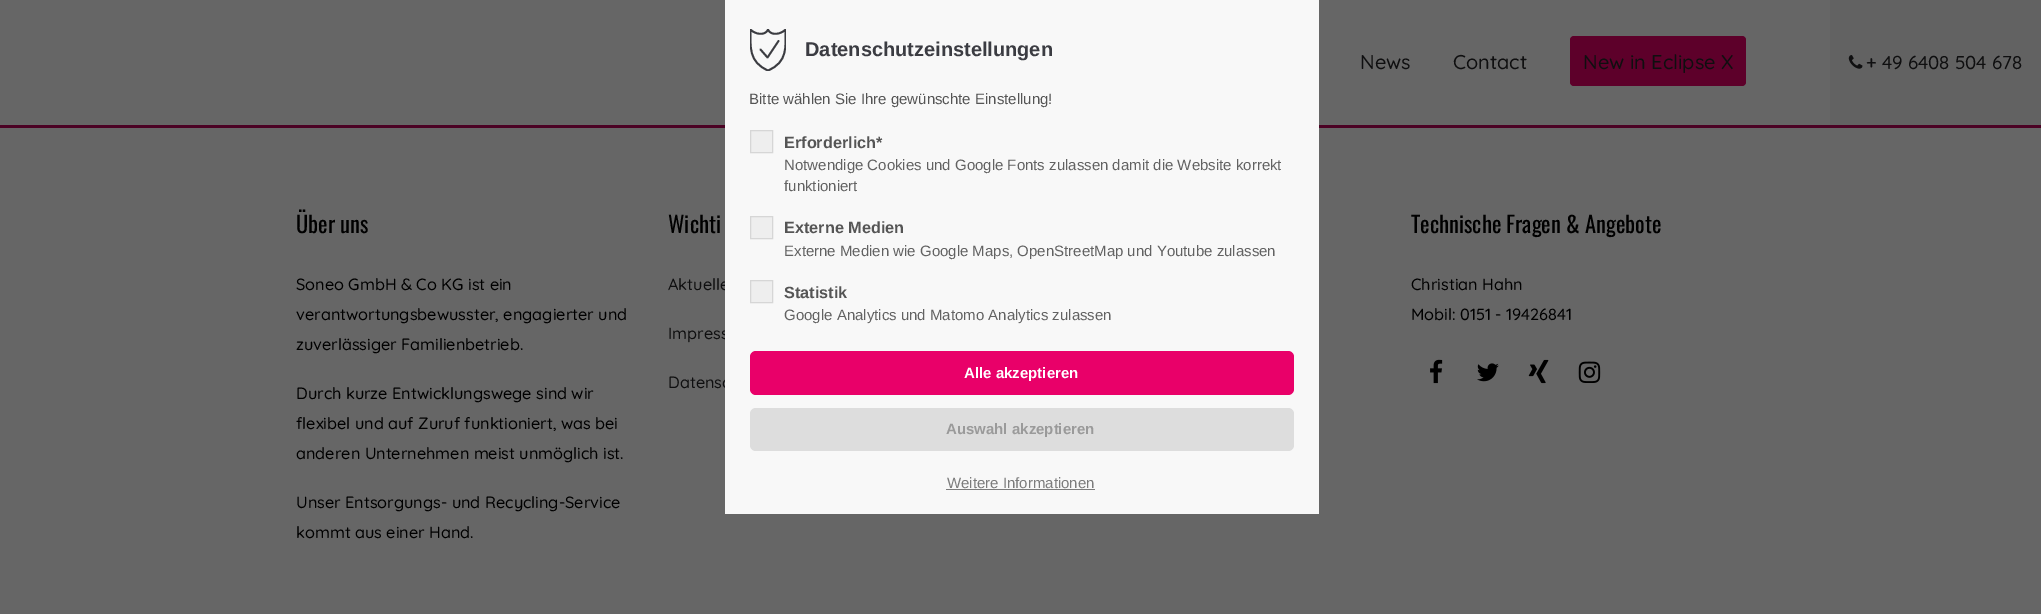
%!PS
<< /PageSize [2041 614] >> setpagedevice
/m/moveto load def
/l/rlineto load def
/c/rcurveto load def
/z/closepath load def
/f/fill load def
/s/stroke load def
/q/gsave load def
/Q_/grestore load def
/w/setlinewidth load def
/C { dup -16 bitshift 255 div exch dup -8 bitshift 255 and 255 div exch 255 and 255 div setrgbcolor } def
/F { [ exch dup neg 0 0 3 -1 roll 0 0 ] selectfont } def
/T { moveto show } def
/R { rectfill } def
/Q { 5 dict begin { /r /h /w /y /x } { exch def } forall
  x r add y moveto x w add y 2 copy h add r arct x w add y h add x 1 index r arct
  x y h add x y r arct x y 2 copy exch w add exch r arct closepath end } def
/I { 5 dict begin { /h /w /y /x /name } { exch def } forall
  gsave x y translate w h scale
  w h 8 [w 0 0 h 0 0] name (r) file false 3 colorimage grestore end } def
0 614 translate 1 -1 scale
4 setmiterlimit
16#666666 C
0 0 2041 614 R
16#4B0224 C
0 125 2041 3 R
/Quicksand-Medium 16.25 F
16#0F0F10 C
(Aktuelle) 668 290 T
(Impress) 668 339 T
(Datensc) 668 388 T
16#F8F8F8 C
725 0 594 514 R
q
750 29 36 42 rectclip
16#3B3C41 C
1.8 w
1 setlinecap
1 setlinejoin
768 70.5 m -19.5 -8.5 -17.5 -23.5 -17.5 -41 c 4 4.5 14.5 7 17.5 0 c 3 7 13.5 4.5 17.5 0 c 0 17.5 2.5 32.5 -17.5 41 c z s
Q_
16#3B3C41 C
1.8 w
1 setlinecap
1 setlinejoin
760.5 49.5 m 7 8 l 11 -16.5 l s
/LiberationSans-Bold 20 F
16#3B3C42 C
(Datenschutzeinstellungen) 805 56 T
/LiberationSans-Regular 15 F
16#555555 C
(Bitte wählen Sie Ihre gewünschte Einstellung!) 749 104 T
16#EEEEEE C
750.5 130.5 m 22 0 l 0 22 l -22 0 l z q f Q_
16#D6D6D6 C
1 w
0 setlinecap
0 setlinejoin
s
/LiberationSans-Bold 16.25 F
16#555555 C
(Erforderlich*) 784 148 T
/LiberationSans-Regular 15 F
16#626262 C
(Notwendige Cookies und Google Fonts zulassen damit die Website korrekt) 784 170 T
(funktioniert) 784 191 T
16#EEEEEE C
750.5 216.5 m 22 0 l 0 22 l -22 0 l z q f Q_
16#D6D6D6 C
s
/LiberationSans-Bold 16.25 F
16#555555 C
(Externe Medien) 784 233 T
/LiberationSans-Regular 15 F
16#626262 C
(Externe Medien wie Google Maps, OpenStreetMap und Youtube zulassen) 784 256 T
16#EEEEEE C
750.5 280.5 m 22 0 l 0 22 l -22 0 l z q f Q_
16#D6D6D6 C
s
/LiberationSans-Bold 16.25 F
16#555555 C
(Statistik) 784 298 T
/LiberationSans-Regular 15 F
16#626262 C
(Google Analytics und Matomo Analytics zulassen) 784 320 T
16#E90069 C
750 351 544 44 6 Q f
/LiberationSans-Bold 15 F
16#FFFFFF C
(Alle akzeptieren) 964 378 T
16#DDDDDD C
750 408 544 43 6 Q f
16#9A9A9A C
(Auswahl akzeptieren) 946 434 T
/LiberationSans-Regular 15 F
16#7C7C7C C
(Weitere Informationen) 947 488 T
946 489 149 1 R
/Quicksand-Medium 20 F
16#0F0F10 C
(News) 1360 69 T
(Contact) 1453 69 T
16#5D002A C
1570 36 176 50 4 Q f
16#0F0F10 C
(New in Eclipse X) 1583 69 T
16#626262 C
1830 0 211 125 R
(1.rgb) 1848 55 15 14 I
/Quicksand-Medium 18.75 F
16#0F0F10 C
(+ 49 6408 504 678) 1866 69 T
/Oswald-Regular 22.5 F
16#000000 C
(Über uns) 296 233 T
/Quicksand-Medium 16.25 F
(Soneo GmbH & Co KG ist ein) 296 290 T
(verantwortungsbewusster, engagierter und) 296 320 T
(zuverlässiger Familienbetrieb.) 296 350 T
(Durch kurze Entwicklungswege sind wir) 296 399 T
(flexibel und auf Zuruf funktioniert, was bei) 296 429 T
(anderen Unternehmen meist unmöglich ist.) 296 459 T
(Unser Entsorgungs- und Recycling-Service) 296 508 T
(kommt aus einer Hand.) 296 538 T
/Oswald-Regular 22.5 F
(Wichti) 668 233 T
(Technische Fragen & Angebote) 1411 233 T
/Quicksand-Medium 16.25 F
(Christian Hahn) 1411 290 T
(Mobil: 0151 - 19426841) 1411 320 T
(2.rgb) 1430 359 13 25 I
(3.rgb) 1477 363 22 19 I
(4.rgb) 1528 359 21 25 I
(5.rgb) 1578 361 23 22 I
showpage
